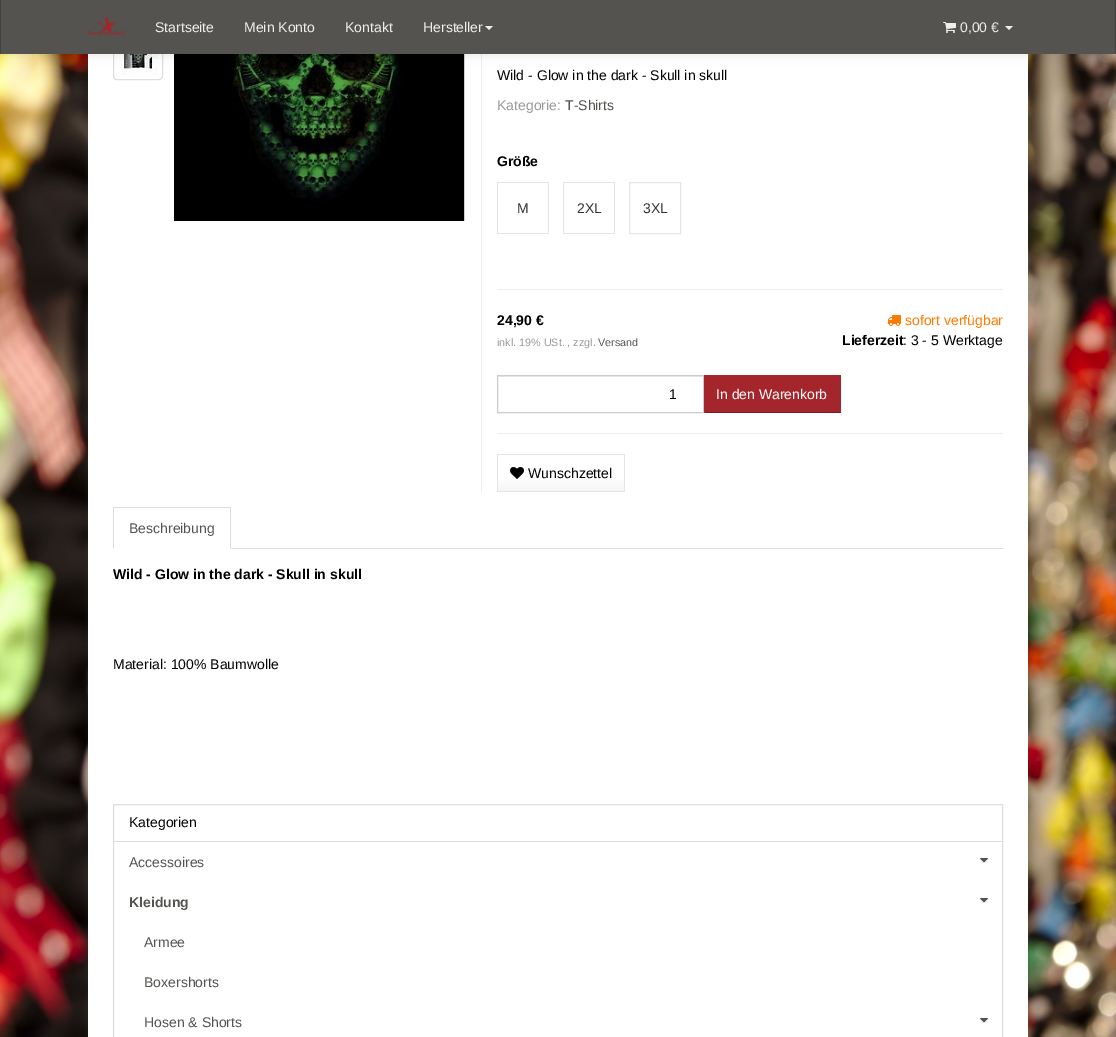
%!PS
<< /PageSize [1116 1037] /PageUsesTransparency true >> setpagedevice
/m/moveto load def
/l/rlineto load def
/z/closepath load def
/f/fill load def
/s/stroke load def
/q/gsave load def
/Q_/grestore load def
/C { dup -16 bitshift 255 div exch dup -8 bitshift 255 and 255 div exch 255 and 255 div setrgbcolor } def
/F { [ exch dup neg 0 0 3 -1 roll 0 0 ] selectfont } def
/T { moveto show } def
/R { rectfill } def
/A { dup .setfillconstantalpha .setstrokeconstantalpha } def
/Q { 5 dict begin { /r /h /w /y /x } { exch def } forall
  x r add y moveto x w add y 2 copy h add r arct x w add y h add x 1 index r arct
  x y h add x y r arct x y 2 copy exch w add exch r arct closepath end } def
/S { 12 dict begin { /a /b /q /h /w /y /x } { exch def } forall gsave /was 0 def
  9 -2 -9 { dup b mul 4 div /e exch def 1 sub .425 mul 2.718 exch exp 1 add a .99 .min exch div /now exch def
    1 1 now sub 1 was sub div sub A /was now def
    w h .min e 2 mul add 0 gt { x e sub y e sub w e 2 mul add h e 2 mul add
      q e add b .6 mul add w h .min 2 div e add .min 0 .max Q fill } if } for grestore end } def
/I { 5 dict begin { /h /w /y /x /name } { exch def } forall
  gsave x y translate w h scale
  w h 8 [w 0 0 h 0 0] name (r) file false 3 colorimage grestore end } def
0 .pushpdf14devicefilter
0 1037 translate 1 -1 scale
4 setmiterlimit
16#FFFFFF C
0 0 1116 1037 R
(8.rgb) 0 54 1116 983 I
16#6A6A6A C
87 -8 942 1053 0 2.5 .1 S
16#FFFFFF C
88 54 940 983 R
16#DDDDDD C
113.5 28.5 49 51 3.5 Q s
(3.rgb) 118 54 40 21 I
(4.rgb) 174 54 291 167 I
16#EEEEEE C
481 54 1 438 R
16#000000 C
0 1 1116 54 0 5 .1 S
16#545350 C
1 0 1114 54 R
16#434240 C
1115 0 1 54 R
0 0 1 54 R
(1.rgb) 88 15 37 20 I
/LiberationSans-Regular 14 F
16#EEEEEE C
(Startseite) 155 32 T
(Mein Konto) 244 32 T
(Kontakt) 345 32 T
(Hersteller) 423 32 T
485 26 m 8 0 l -4 4 l z f
(2.rgb) 943 22 13 11 I
(0,00 €) 960 32 T
1005 26 m 8 0 l -4 4 l z f
16#000000 C
(Wild - Glow in the dark - Skull in skull) 497 80 T
16#999999 C
(Kategorie:) 497 110 T
16#545350 C
(T-Shirts) 565 110 T
/LiberationSans-Bold 14 F
16#000000 C
(Größe) 497 166 T
16#E6E6E6 C
497 182 m 52 0 l -1 1 l -50 0 l z f
0.1 A
16#000000 C
549 182 m 0 52 l -1 -1 l 0 -50 l z f
1 A
16#E6E6E6 C
549 234 m -52 0 l 1 -1 l 50 0 l z f
0.1 A
16#000000 C
497 234 m 0 -52 l 1 1 l 0 50 l z f
/LiberationSans-Regular 14 F
1 A
16#333333 C
(M) 517 213 T
16#E6E6E6 C
563 182 m 52 0 l -1 1 l -50 0 l z f
0.1 A
16#000000 C
615 182 m 0 52 l -1 -1 l 0 -50 l z f
1 A
16#E6E6E6 C
615 234 m -52 0 l 1 -1 l 50 0 l z f
0.1 A
16#000000 C
563 234 m 0 -52 l 1 1 l 0 50 l z f
1 A
16#333333 C
(2XL) 577 213 T
16#E6E6E6 C
629.5 182.5 51 51 rectstroke
16#333333 C
(3XL) 643 213 T
16#EEEEEE C
497 289 506 1 R
/LiberationSans-Bold 14 F
16#000000 C
(24,90 €) 497 325 T
/LiberationSans-Regular 10.75 F
16#999999 C
(inkl. 19% USt. , zzgl.) 497 346 T
16#545350 C
(Versand) 598 346 T
(5.rgb) 887 315 14 11 I
/LiberationSans-Regular 14 F
16#FF7A00 C
(sofort verfügbar) 905 325 T
/LiberationSans-Bold 14 F
16#000000 C
(Lieferzeit) 842 345 T
/LiberationSans-Regular 14 F
(: 3 - 5 Werktage) 903 345 T
16#ECECEC C
498 376 205 1 R
16#7B1C21 C
703 412 138 1 R
16#CCCCCC C
497.5 375.5 206 37 rectstroke
16#000000 C
(1) 669 399 T
16#A4262C C
704 375 137 37 R
16#FFFFFF C
(In den Warenkorb) 716 399 T
16#EEEEEE C
497 433 506 1 R
q 498 480 m 126 0 l 0 11 l -126 0 l z clip newpath
<< /ShadingType 2 /ColorSpace /DeviceRGB /Coords [561 455 561 491] /Extend [true true] /Function << /FunctionType 3 /Domain [0 1] /Functions [<< /FunctionType 2 /Domain [0 1] /C0 [1 1 1] /C1 [1 1 1] /N 1 >> << /FunctionType 2 /Domain [0 1] /C0 [1 1 1] /C1 [.961 .961 .961] /N 1 >>] /Bounds [.6] /Encode [0 1 0 1] >> >> shfill Q_
16#E6E6E6 C
497 454 m 128 0 l -1 1 l -126 0 l z f
0.1 A
16#000000 C
625 454 m 0 38 l -1 -1 l 0 -36 l z f
1 A
16#E6E6E6 C
625 492 m -128 0 l 1 -1 l 126 0 l z f
0.1 A
16#000000 C
497 492 m 0 -38 l 1 1 l 0 36 l z f
1 A
(6.rgb) 510 467 14 12 I
(Wunschzettel) 528 478 T
16#DDDDDD C
231 548 772 1 R
113 507 118 1 R
231 507 m 0 42 l -1 -1 l 0 -40 l z f
113 549 m 0 -42 l 1 1 l 0 40 l z f
16#545350 C
(Beschreibung) 129 533 T
/LiberationSans-Bold 14 F
16#000000 C
(Wild - Glow in the dark - Skull in skull) 113 579 T
/LiberationSans-Regular 14 F
(Material: 100% Baumwolle) 113 669 T
16#DDDDDD C
113.5 804.5 889 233 rectstroke
114 841 888 1 R
16#000000 C
(Kategorien) 129 827 T
16#545350 C
(Accessoires) 129 867 T
(7.rgb) 980 858 8 5 I
/LiberationSans-Bold 14 F
(Kleidung) 129 907 T
(7.rgb) 980 898 8 5 I
/LiberationSans-Regular 14 F
(Armee) 144 947 T
(Boxershorts) 144 987 T
(Hosen & Shorts) 144 1027 T
(7.rgb) 980 1018 8 5 I
.poppdf14devicefilter showpage
